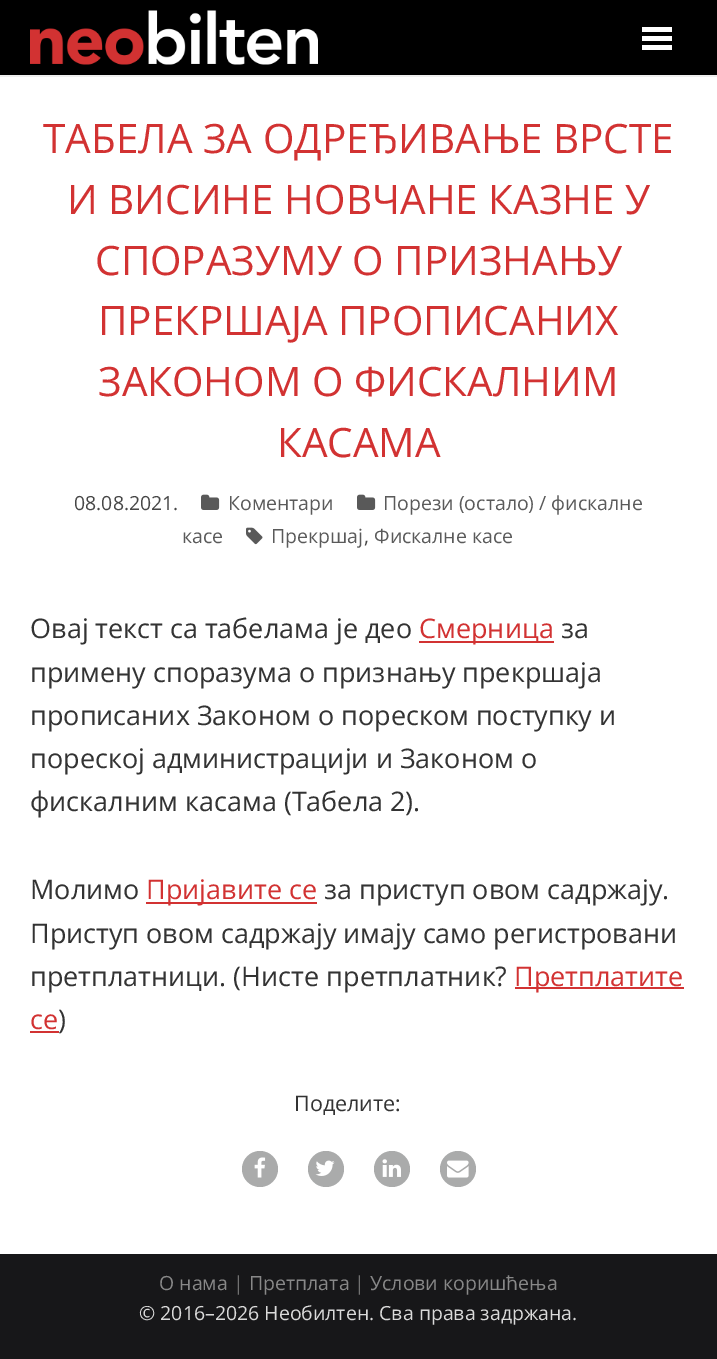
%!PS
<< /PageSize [717 1359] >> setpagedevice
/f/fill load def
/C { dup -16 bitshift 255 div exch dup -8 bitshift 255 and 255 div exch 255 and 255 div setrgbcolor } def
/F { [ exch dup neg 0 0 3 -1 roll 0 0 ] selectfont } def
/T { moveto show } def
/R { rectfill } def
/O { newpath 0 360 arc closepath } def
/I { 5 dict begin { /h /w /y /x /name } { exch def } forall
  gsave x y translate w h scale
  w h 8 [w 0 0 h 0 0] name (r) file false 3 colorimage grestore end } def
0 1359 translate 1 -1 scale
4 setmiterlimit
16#FFFFFF C
0 0 717 1359 R
16#000000 C
0 0 717 75 R
(1.rgb) 30 10 288 55 I
16#FFFFFF C
642 27 30 5 R
642 36 30 5 R
642 45 30 5 R
16#EEEEEE C
0 75 717 2 R
/OpenSans-Regular 40.5 F
16#D23232 C
(ТАБЕЛА ЗА ОДРЕЂИВАЊЕ ВРСТЕ) 43 153 T
(И ВИСИНЕ НОВЧАНЕ КАЗНЕ У) 67 214 T
(СПОРАЗУМУ О ПРИЗНАЊУ) 95 275 T
(ПРЕКРШАЈА ПРОПИСАНИХ) 98 335 T
(ЗАКОНОМ О ФИСКАЛНИМ) 98 396 T
(КАСАМА) 277 457 T
/OpenSans-Regular 19.5 F
16#474747 C
(08.08.2021.) 74 510 T
(2.rgb) 201 494 19 16 I
16#5A5A5A C
(Коментари) 228 510 T
(2.rgb) 357 494 19 16 I
(Порези \(остало\) / фискалне) 383 510 T
(касе) 182 543 T
(3.rgb) 246 527 17 18 I
(Прекршај) 271 543 T
16#474747 C
(,) 364 543 T
16#5A5A5A C
(Фискалне касе) 374 543 T
/OpenSans-Regular 27 F
16#333333 C
(Овај текст са табелама је део) 30 638 T
16#D23232 C
419 641 135 2 R
(Смерница) 419 638 T
16#333333 C
(за) 561 638 T
(примену споразума о признању прекршаја) 30 682 T
(прописаних Законом о пореском поступку и) 30 725 T
(пореској администрацији и Законом о) 30 768 T
(фискалним касама \(Табела 2\).) 30 811 T
(Молимо) 30 899 T
16#D23232 C
146 902 171 2 R
(Пријавите се) 146 899 T
16#333333 C
(за приступ овом садржају.) 324 899 T
(Приступ овом садржају имају само регистровани) 30 943 T
(претплатници. \(Нисте претплатник?) 30 986 T
16#D23232 C
515 987 169 2 R
(Претплатите) 514 986 T
(се) 30 1029 T
30 1031 29 2 R
16#333333 C
(\)) 58 1029 T
/OpenSans-Regular 21.5 F
(Поделите:) 294 1111 T
16#AAABAB C
260 1169 18 O f
(4.rgb) 254 1157 12 21 I
326 1169 18 O f
(5.rgb) 315 1160 20 16 I
392 1169 18 O f
(6.rgb) 382 1159 19 18 I
458 1169 18 O f
(7.rgb) 447 1160 22 18 I
16#171719 C
0 1254 717 105 R
/OpenSans-Regular 19.5 F
16#888888 C
(О нама) 159 1290 T
16#717171 C
(|) 233 1290 T
16#888888 C
(Претплата) 249 1290 T
16#717171 C
(|) 354 1290 T
16#888888 C
(Услови коришћења) 370 1290 T
16#DADADA C
(© 2016–2026 Необилтен. Сва права задржана.) 139 1320 T
showpage
